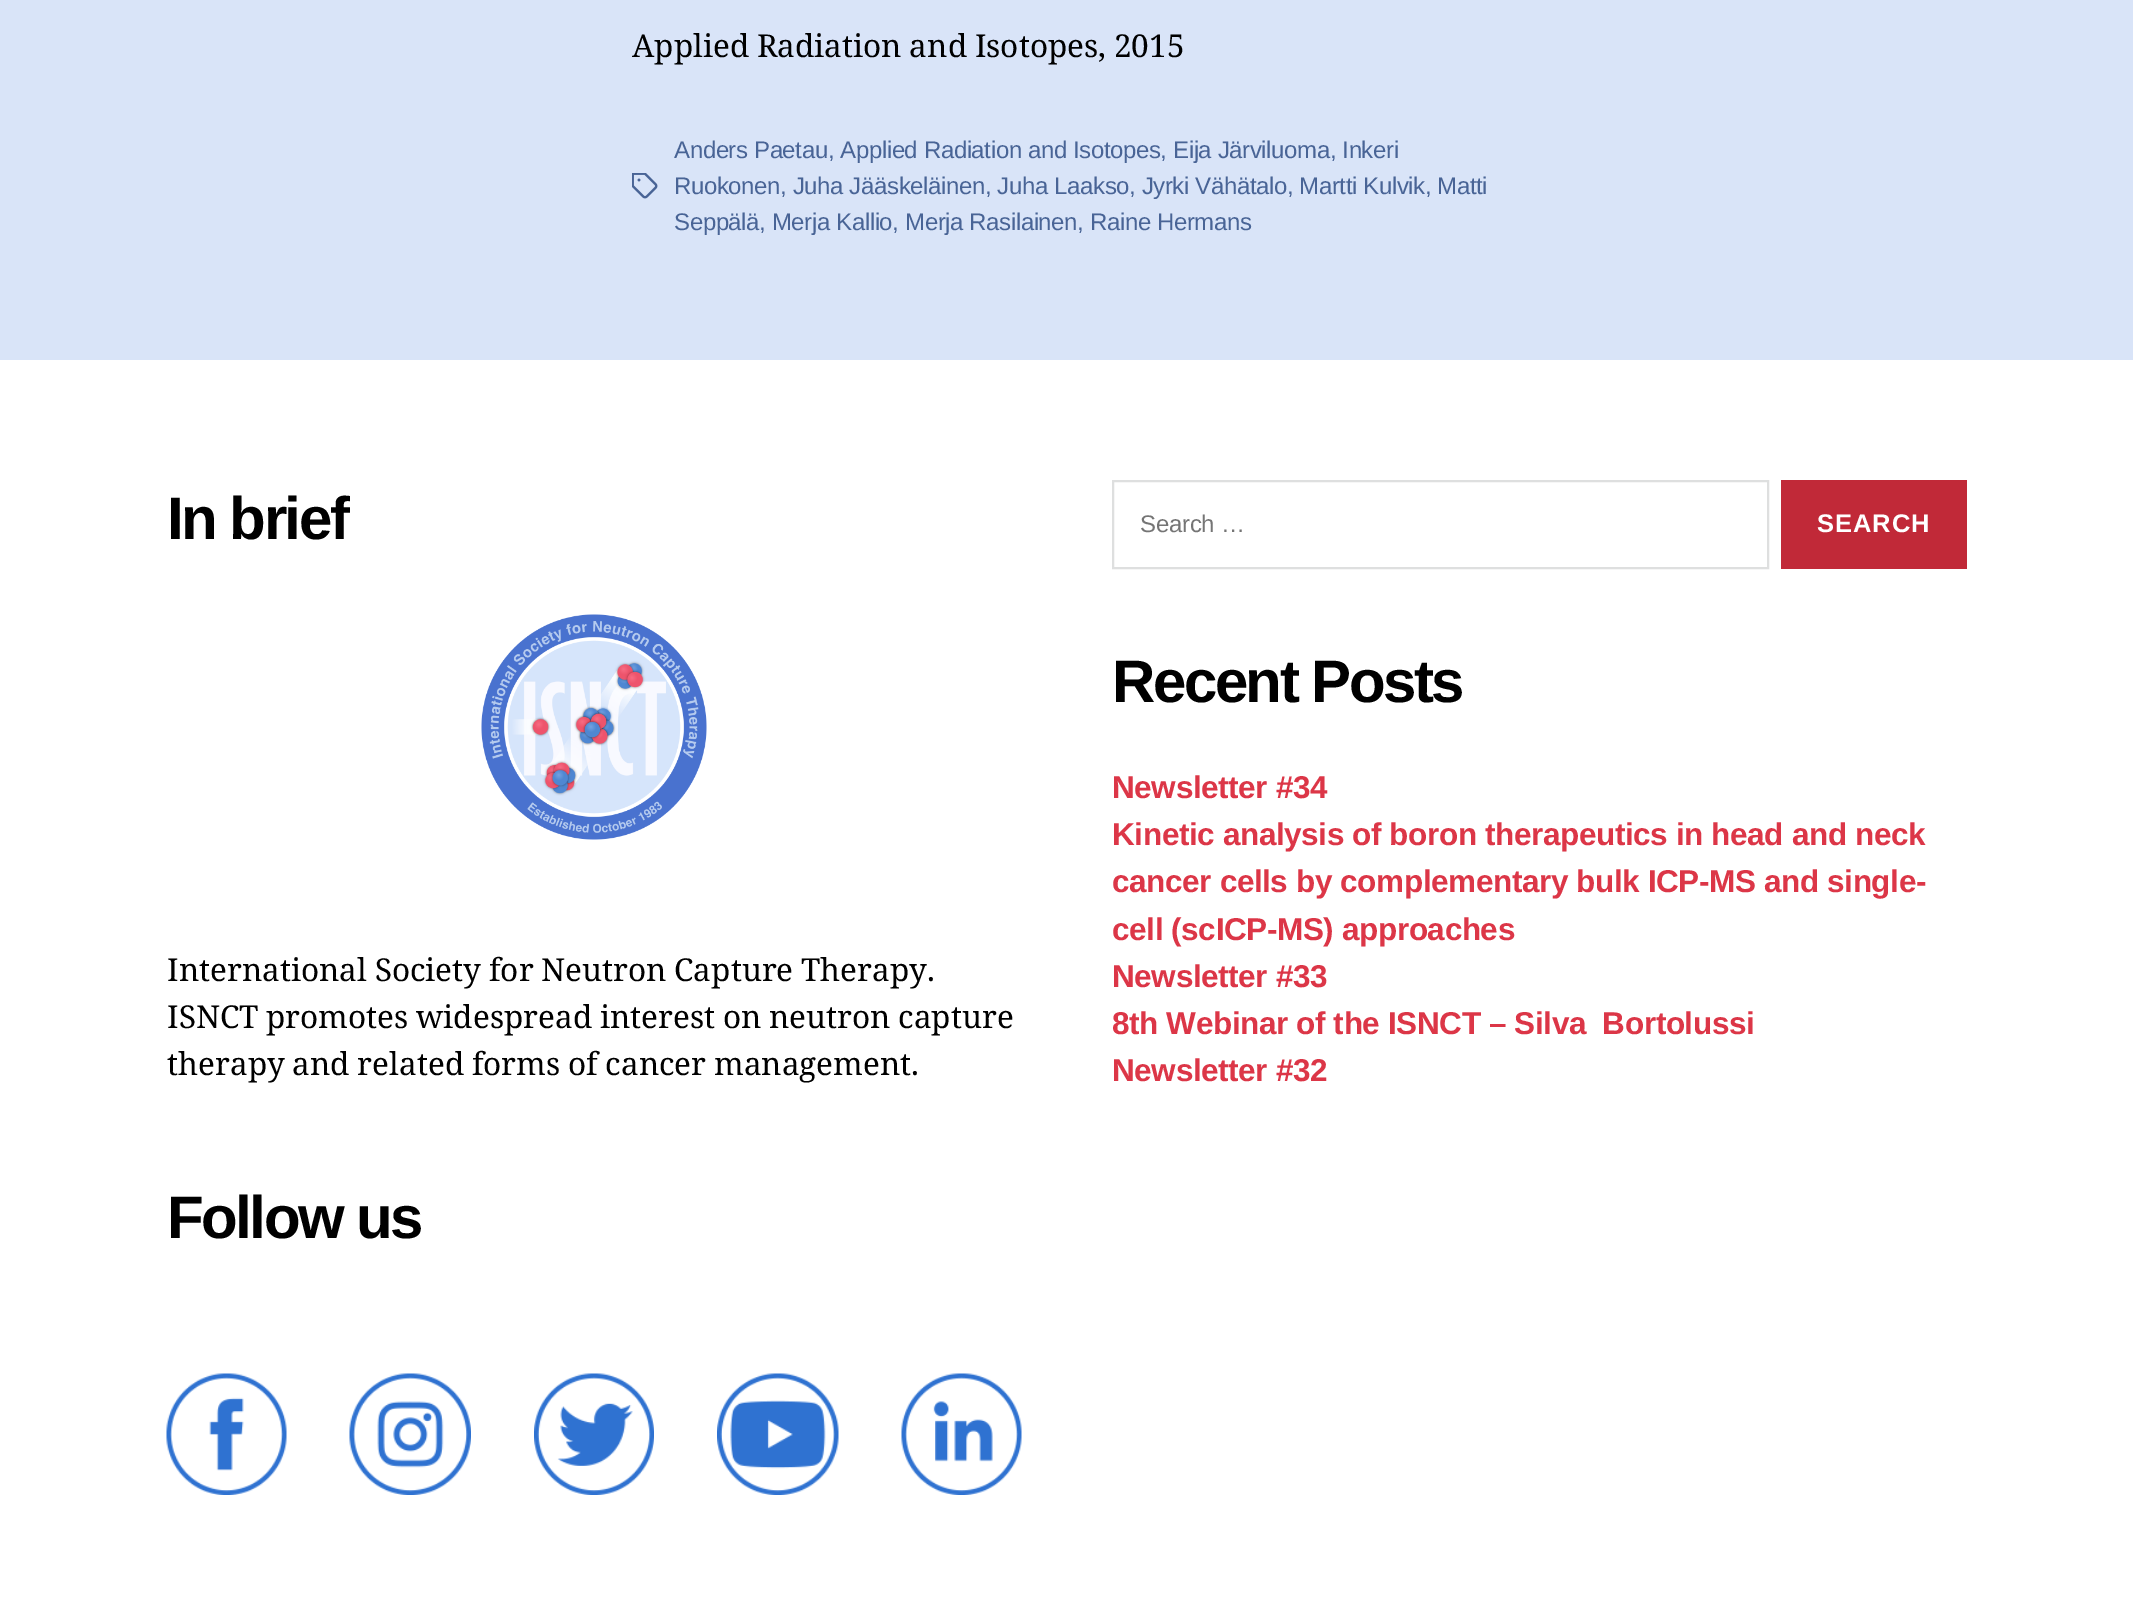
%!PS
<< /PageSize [2133 1614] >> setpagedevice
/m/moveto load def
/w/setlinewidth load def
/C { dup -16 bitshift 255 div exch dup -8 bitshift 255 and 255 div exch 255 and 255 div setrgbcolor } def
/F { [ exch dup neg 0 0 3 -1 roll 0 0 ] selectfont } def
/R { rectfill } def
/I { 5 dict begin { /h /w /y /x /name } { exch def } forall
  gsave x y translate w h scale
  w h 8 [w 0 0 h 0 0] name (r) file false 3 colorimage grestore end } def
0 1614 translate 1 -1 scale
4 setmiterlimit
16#D9E4F8 C
0 0 2133 1614 R
/NotoSerif-Regular 31.5 F
16#000000 C
632 57 m -.5 0 32 (Applied Radiation and Isotopes, 2015) widthshow
(1.rgb) 632 173 26 26 I
/LiberationSans-Regular 24 F
16#496496 C
674 158 m -.4 0 (Anders Paetau, Applied Radiation and Isotopes, Eija Järviluoma, Inkeri) ashow
674 194 m -.4 0 (Ruokonen, Juha Jääskeläinen, Juha Laakso, Jyrki Vähätalo, Martti Kulvik, Matti) ashow
674 230 m -.4 0 (Seppälä, Merja Kallio, Merja Rasilainen, Raine Hermans) ashow
16#FFFFFF C
0 360 2133 1254 R
/LiberationSans-Bold 60 F
16#000000 C
167 539 m -2.5 0 (In brief) ashow
(2.rgb) 481 614 226 226 I
/NotoSerif-Regular 31.5 F
167 981 m -.5 0 32 (International Society for Neutron Capture Therapy.) widthshow
167 1028 m -.5 0 32 (ISNCT promotes widespread interest on neutron capture) widthshow
167 1075 m -.5 0 32 (therapy and related forms of cancer management.) widthshow
/LiberationSans-Bold 60 F
167 1238 m -2.5 0 (Follow us) ashow
(3.rgb) 166 1373 121 122 I
(4.rgb) 349 1373 122 122 I
(5.rgb) 534 1373 120 122 I
(6.rgb) 717 1373 122 122 I
(7.rgb) 901 1373 121 122 I
16#DEDFDF C
2 w
1113 481 655 87 rectstroke
/LiberationSans-Regular 24 F
16#757575 C
1140 532 m -.25 0 (Search …) ashow
16#C12938 C
1781 480 186 89 R
/LiberationSans-Bold 25.5 F
16#FFFFFF C
1817 532 m 1 0 (SEARCH) ashow
/LiberationSans-Bold 60 F
16#000000 C
1112 702 m -2.5 0 (Recent Posts) ashow
/LiberationSans-Bold 31.5 F
16#DC3647 C
1112 798 m -.4 0 (Newsletter #34) ashow
1112 845 m -.4 0 (Kinetic analysis of boron therapeutics in head and neck) ashow
1112 892 m -.4 0 (cancer cells by complementary bulk ICP-MS and single-) ashow
1112 940 m -.4 0 (cell \(scICP-MS\) approaches) ashow
1112 987 m -.4 0 (Newsletter #33) ashow
1112 1034 m -.4 0 (8th Webinar of the ISNCT – Silva  Bortolussi) ashow
1112 1081 m -.4 0 (Newsletter #32) ashow
showpage
